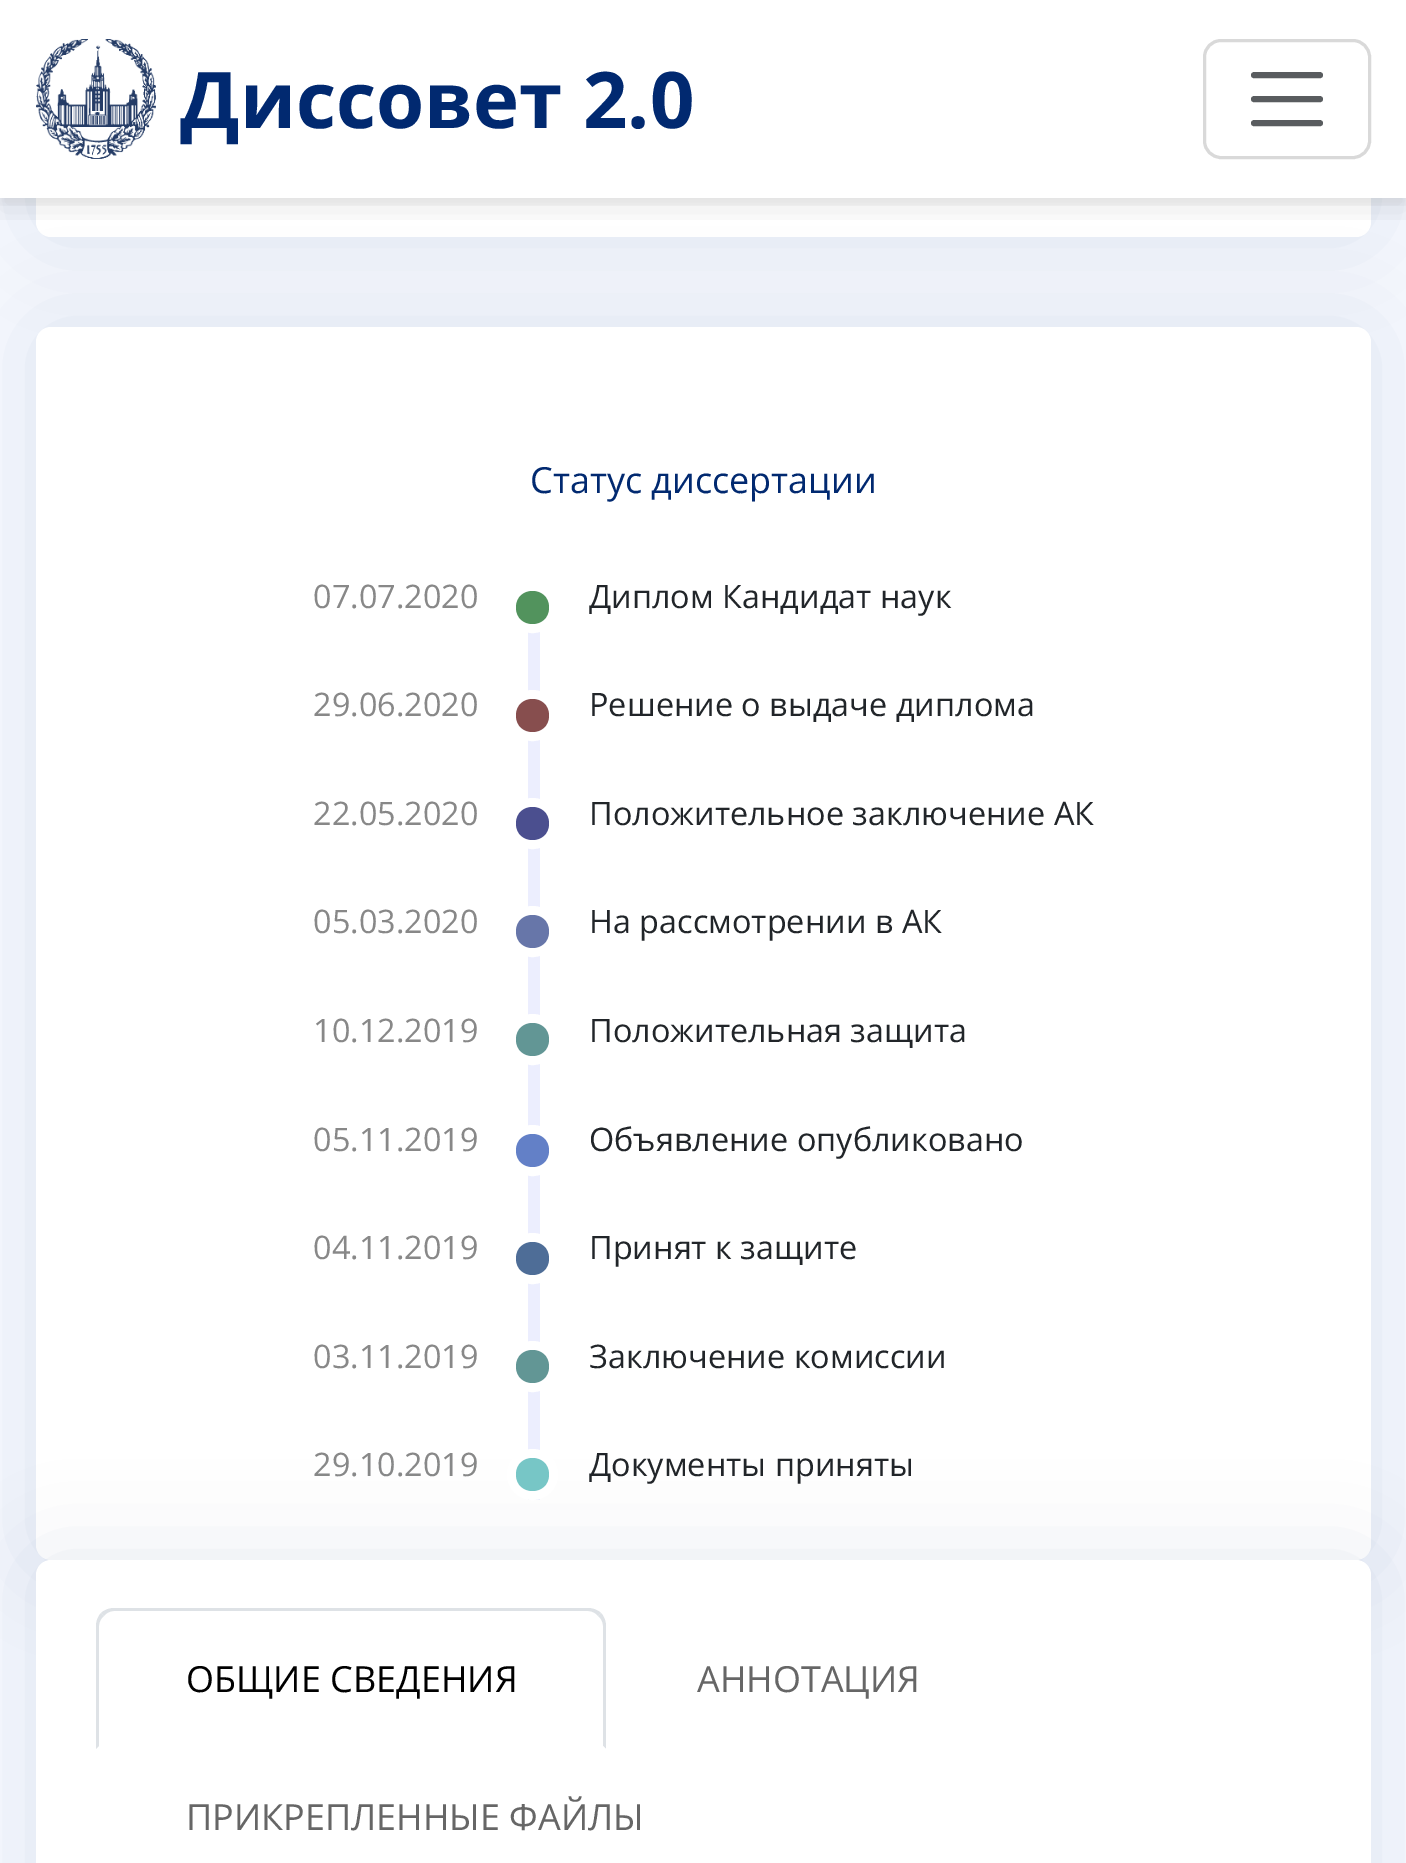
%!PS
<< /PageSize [1406 1863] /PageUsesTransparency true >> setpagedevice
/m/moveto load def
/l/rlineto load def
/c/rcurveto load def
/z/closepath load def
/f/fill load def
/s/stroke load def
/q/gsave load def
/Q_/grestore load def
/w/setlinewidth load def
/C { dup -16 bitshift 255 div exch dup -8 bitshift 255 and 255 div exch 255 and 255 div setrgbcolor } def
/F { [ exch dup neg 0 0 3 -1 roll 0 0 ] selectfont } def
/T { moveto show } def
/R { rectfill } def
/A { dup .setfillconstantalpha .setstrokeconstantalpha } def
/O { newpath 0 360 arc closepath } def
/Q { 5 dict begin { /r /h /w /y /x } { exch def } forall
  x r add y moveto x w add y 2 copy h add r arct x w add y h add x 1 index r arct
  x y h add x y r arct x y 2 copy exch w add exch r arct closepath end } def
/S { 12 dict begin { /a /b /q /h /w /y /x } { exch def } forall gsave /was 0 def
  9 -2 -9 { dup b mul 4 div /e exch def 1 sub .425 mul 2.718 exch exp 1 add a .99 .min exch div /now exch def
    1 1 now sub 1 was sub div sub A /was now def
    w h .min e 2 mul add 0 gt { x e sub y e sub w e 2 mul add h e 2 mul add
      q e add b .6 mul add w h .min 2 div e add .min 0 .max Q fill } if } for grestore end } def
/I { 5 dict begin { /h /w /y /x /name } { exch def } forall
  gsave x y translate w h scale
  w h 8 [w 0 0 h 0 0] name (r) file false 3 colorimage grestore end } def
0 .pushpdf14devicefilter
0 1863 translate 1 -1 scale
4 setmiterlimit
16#F6F9FF C
0 0 1406 1863 R
16#012970 C
36 -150 1335 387 15 45 .1 S
16#FFFFFF C
36 -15 1335 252 15 Q f
16#012970 C
36 327 1335 1233 15 45 .1 S
16#FFFFFF C
0 0 1406 198 R
q
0 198 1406 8 rectclip
16#000000 C
0 6 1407 198 0 6 .05 S
Q_
q
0 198 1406 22 rectclip
16#000000 C
0 12 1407 198 0 18 .07 S
Q_
(1.rgb) 36 39 120 120 I
/OpenSans-Bold 78 F
16#012970 C
(Диссовет 2.0) 180 128 T
16#D9D9D9 C
3 w
1204.5 40.5 165 117 16.5 Q s
16#595C5F C
6 w
1 setlinecap
1254 75 m 66 0 l 1254 99 m 66 0 l 1254 123 m 66 0 l s
16#FFFFFF C
36 327 1335 1233 15 Q f
/OpenSans-Regular 36 F
16#012970 C
(Статус диссертации) 530 493 T
/OpenSans-Regular 32.4 F
16#888888 C
(07.07.2020) 313 608 T
16#ECEEFE C
528 591 12 909 R
16#FFFFFF C
9 w
0 setlinecap
532.5 607.5 21 O s
16#52935D C
516 607.5 m 0 22 33 22 33 0 c 0 -22 -33 -22 -33 0 c z f
16#212529 C
(Диплом Кандидат наук) 589 608 T
16#888888 C
(29.06.2020) 313 716 T
16#FFFFFF C
532.5 715.5 21 O s
16#874E4E C
516 715.5 m 0 22 33 22 33 0 c 0 -22 -33 -22 -33 0 c z f
16#212529 C
(Решение о выдаче диплома) 589 716 T
16#888888 C
(22.05.2020) 313 825 T
16#FFFFFF C
532.5 823.5 21 O s
16#4B4F8F C
516 823.5 m 0 22 33 22 33 0 c 0 -22 -33 -22 -33 0 c z f
16#212529 C
(Положительное заключение АК) 589 825 T
16#888888 C
(05.03.2020) 313 933 T
16#FFFFFF C
532.5 931.5 21 O s
16#6776A9 C
516 931.5 m 0 22 33 22 33 0 c 0 -22 -33 -22 -33 0 c z f
16#212529 C
(На рассмотрении в АК) 589 933 T
16#888888 C
(10.12.2019) 313 1042 T
16#FFFFFF C
532.5 1039.5 21 O s
16#629695 C
516 1039.5 m 0 22 33 22 33 0 c 0 -22 -33 -22 -33 0 c z f
16#212529 C
(Положительная защита) 589 1042 T
16#888888 C
(05.11.2019) 313 1151 T
16#FFFFFF C
532.5 1150.5 21 O s
16#6380C7 C
516 1150.5 m 0 22 33 22 33 0 c 0 -22 -33 -22 -33 0 c z f
16#212529 C
(Объявление опубликовано) 589 1151 T
16#888888 C
(04.11.2019) 313 1259 T
16#FFFFFF C
532.5 1258.5 21 O s
16#4E6D97 C
516 1258.5 m 0 22 33 22 33 0 c 0 -22 -33 -22 -33 0 c z f
16#212529 C
(Принят к защите) 589 1259 T
16#888888 C
(03.11.2019) 313 1368 T
16#FFFFFF C
532.5 1366.5 21 O s
16#629695 C
516 1366.5 m 0 22 33 22 33 0 c 0 -22 -33 -22 -33 0 c z f
16#212529 C
(Заключение комиссии) 589 1368 T
16#888888 C
(29.10.2019) 313 1476 T
16#012970 C
36 1560 1335 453 15 45 .1 S
16#FFFFFF C
532.5 1474.5 21 O s
16#77C6C6 C
516 1474.5 m 0 22 33 22 33 0 c 0 -22 -33 -22 -33 0 c z f
16#212529 C
(Документы приняты) 589 1476 T
16#FFFFFF C
36 1560 1335 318 15 Q f
16#DEE2E6 C
114 1608 m -5 0 -10 2 -13 5 c 3 3 l 2 -3 6 -5 10 -5 c 474 0 l 4 0 8 2 10 5 c 3 -3 l -3 -3 -8 -5 -13 -5 c z f
606 1749 m 0 -123 l 0 -5 -2 -10 -5 -13 c -3 3 l 3 2 5 6 5 10 c 0 120 l z f
16#FFFFFF C
606 1749 m -3 -3 l -504 0 l -3 3 l z f
16#DEE2E6 C
96 1749 m 3 -3 l 0 -120 l 0 -4 2 -8 5 -10 c -3 -3 l -3 3 -5 8 -5 13 c z f
/OpenSans-Regular 36 F
16#000000 C
(ОБЩИЕ СВЕДЕНИЯ) 186 1692 T
16#666666 C
(АННОТАЦИЯ) 697 1692 T
(ПРИКРЕПЛЕННЫЕ ФАЙЛЫ) 186 1830 T
.poppdf14devicefilter showpage
